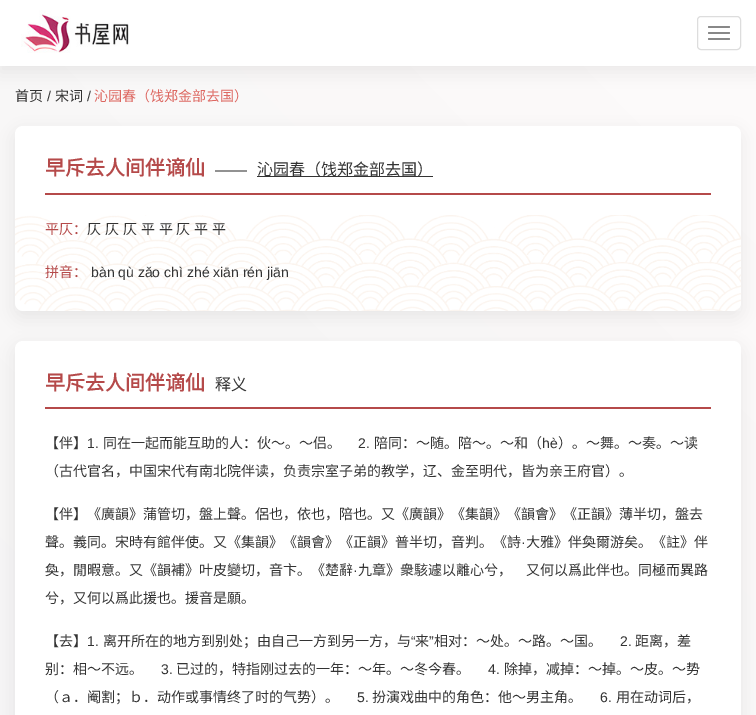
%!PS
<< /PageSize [756 715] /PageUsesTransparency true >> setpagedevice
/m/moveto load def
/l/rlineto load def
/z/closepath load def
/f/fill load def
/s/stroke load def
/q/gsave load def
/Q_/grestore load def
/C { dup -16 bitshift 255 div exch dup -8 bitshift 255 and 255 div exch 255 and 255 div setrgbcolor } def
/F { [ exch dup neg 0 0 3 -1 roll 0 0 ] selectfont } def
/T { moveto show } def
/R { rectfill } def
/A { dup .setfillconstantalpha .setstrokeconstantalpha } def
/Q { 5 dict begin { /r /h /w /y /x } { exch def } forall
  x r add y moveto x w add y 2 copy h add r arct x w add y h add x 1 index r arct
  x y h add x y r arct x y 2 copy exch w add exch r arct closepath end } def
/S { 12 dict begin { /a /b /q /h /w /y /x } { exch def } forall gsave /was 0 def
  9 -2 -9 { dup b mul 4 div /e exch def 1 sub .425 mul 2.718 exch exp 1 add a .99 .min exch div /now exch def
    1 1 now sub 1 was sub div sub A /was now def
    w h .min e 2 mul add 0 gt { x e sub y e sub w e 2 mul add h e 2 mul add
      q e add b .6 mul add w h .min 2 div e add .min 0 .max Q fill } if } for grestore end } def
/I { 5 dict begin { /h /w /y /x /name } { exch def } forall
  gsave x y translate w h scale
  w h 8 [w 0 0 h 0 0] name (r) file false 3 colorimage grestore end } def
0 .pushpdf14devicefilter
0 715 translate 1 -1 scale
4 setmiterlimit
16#FFFFFF C
0 0 756 715 R
q 0 66 m 756 0 l 0 649 l -756 0 l z clip newpath
<< /ShadingType 2 /ColorSpace /DeviceRGB /Coords [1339 604 -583 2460] /Extend [true true] /Function << /FunctionType 2 /Domain [0 1] /C0 [.992 .984 .984] /C1 [.922 .929 .933] /N 1 >> >> shfill Q_
16#242526 C
0 6 756 66 0 7.5 .08 S
16#FFFFFF C
0 0 756 66 R
(1.rgb) 21 10 108 43 I
16#DDDDDD C
697.5 16.5 43 33 3.5 Q s
16#888888 C
708 26 22 2 1 Q f
708 32 22 2 1 Q f
708 38 22 2 1 Q f
/NotoSansCJKSC-Regular 14 F
16#333333 C
(首页) 15 101 T
/LiberationSans-Regular 14 F
(/) 47 101 T
/NotoSansCJKSC-Regular 14 F
(宋词) 55 101 T
/LiberationSans-Regular 14 F
(/) 87 101 T
/NotoSansCJKSC-Regular 14 F
16#DD6761 C
(沁园春（饯郑金部去国）) 94 101 T
16#242526 C
15 132 726 185 8 7.5 .08 S
16#FFFFFF C
15 126 726 185 8 Q f
(2.rgb) 15 215 726 96 I
16#B54A4A C
45 193 666 2 R
/NotoSansCJKSC-Bold 20 F
(早斥去人间伴谪仙) 45 175 T
/LiberationSans-Regular 16 F
16#333333 C
(——) 215 175 T
257 176 176 1 R
/NotoSansCJKSC-Regular 16 F
(沁园春（饯郑金部去国）) 257 175 T
/NotoSansCJKSC-Regular 14 F
16#B54A4A C
(平仄：) 45 234 T
16#333333 C
87 234 m .75 0 32 (仄 仄 仄 平 平 仄 平 平) widthshow
16#B54A4A C
(拼音：) 45 277 T
/LiberationSans-Regular 14 F
16#333333 C
(bàn qù zǎo chì zhé xiān rén jiān) 91 277 T
16#242526 C
15 347 726 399 8 7.5 .08 S
16#FFFFFF C
15 341 726 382 8 Q f
16#B54A4A C
45 407 666 2 R
/NotoSansCJKSC-Bold 20 F
(早斥去人间伴谪仙) 45 390 T
/NotoSansCJKSC-Regular 16 F
16#333333 C
(释义) 215 390 T
/NotoSansCJKSC-Regular 14 F
(【伴】) 45 448 T
/LiberationSans-Regular 14 F
(1.) 87 448 T
/NotoSansCJKSC-Regular 14 F
(同在一起而能互助的人：伙～。～侣。) 103 448 T
/LiberationSans-Regular 14 F
(2.) 358 448 T
/NotoSansCJKSC-Regular 14 F
(陪同：～随。陪～。～和（) 374 448 T
/LiberationSans-Regular 14 F
(hè) 542 448 T
/NotoSansCJKSC-Regular 14 F
(）。～舞。～奏。～读) 558 448 T
(（古代官名，中国宋代有南北院伴读，负责宗室子弟的教学，辽、金至明代，皆为亲王府官）。) 45 476 T
(【伴】《廣韻》蒲管切，盤上聲。侶也，依也，陪也。又《廣韻》《集韻》《韻會》《正韻》薄半切，盤去) 45 519 T
(聲。義同。宋時有館伴使。又《集韻》《韻會》《正韻》普半切，音判。《詩) 45 547 T
/LiberationSans-Regular 14 F
(·) 521 547 T
/NotoSansCJKSC-Regular 14 F
(大雅》伴奐爾游矣。《註》伴) 526 547 T
(奐，閒暇意。又《韻補》叶皮變切，音卞。《楚辭) 45 575 T
/LiberationSans-Regular 14 F
(·) 353 575 T
/NotoSansCJKSC-Regular 14 F
(九章》衆駭遽以離心兮，　又何以爲此伴也。同極而異路) 358 575 T
(兮，又何以爲此援也。援音是願。) 45 603 T
(【去】) 45 646 T
/LiberationSans-Regular 14 F
(1.) 87 646 T
/NotoSansCJKSC-Regular 14 F
(离开所在的地方到别处；由自己一方到另一方，与) 103 646 T
/LiberationSans-Regular 14 F
(“) 411 646 T
/NotoSansCJKSC-Regular 14 F
(来) 415 646 T
/LiberationSans-Regular 14 F
(”) 429 646 T
/NotoSansCJKSC-Regular 14 F
(相对：～处。～路。～国。) 434 646 T
/LiberationSans-Regular 14 F
(2.) 620 646 T
/NotoSansCJKSC-Regular 14 F
(距离，差) 635 646 T
(别：相～不远。) 45 674 T
/LiberationSans-Regular 14 F
(3.) 161 674 T
/NotoSansCJKSC-Regular 14 F
(已过的，特指刚过去的一年：～年。～冬今春。) 176 674 T
/LiberationSans-Regular 14 F
(4.) 488 674 T
/NotoSansCJKSC-Regular 14 F
(除掉，减掉：～掉。～皮。～势) 504 674 T
(（ａ．阉割；ｂ．动作或事情终了时的气势）。) 45 702 T
/LiberationSans-Regular 14 F
(5.) 357 702 T
/NotoSansCJKSC-Regular 14 F
(扮演戏曲中的角色：他～男主角。) 372 702 T
/LiberationSans-Regular 14 F
(6.) 600 702 T
/NotoSansCJKSC-Regular 14 F
(用在动词后，) 616 702 T
.poppdf14devicefilter showpage
